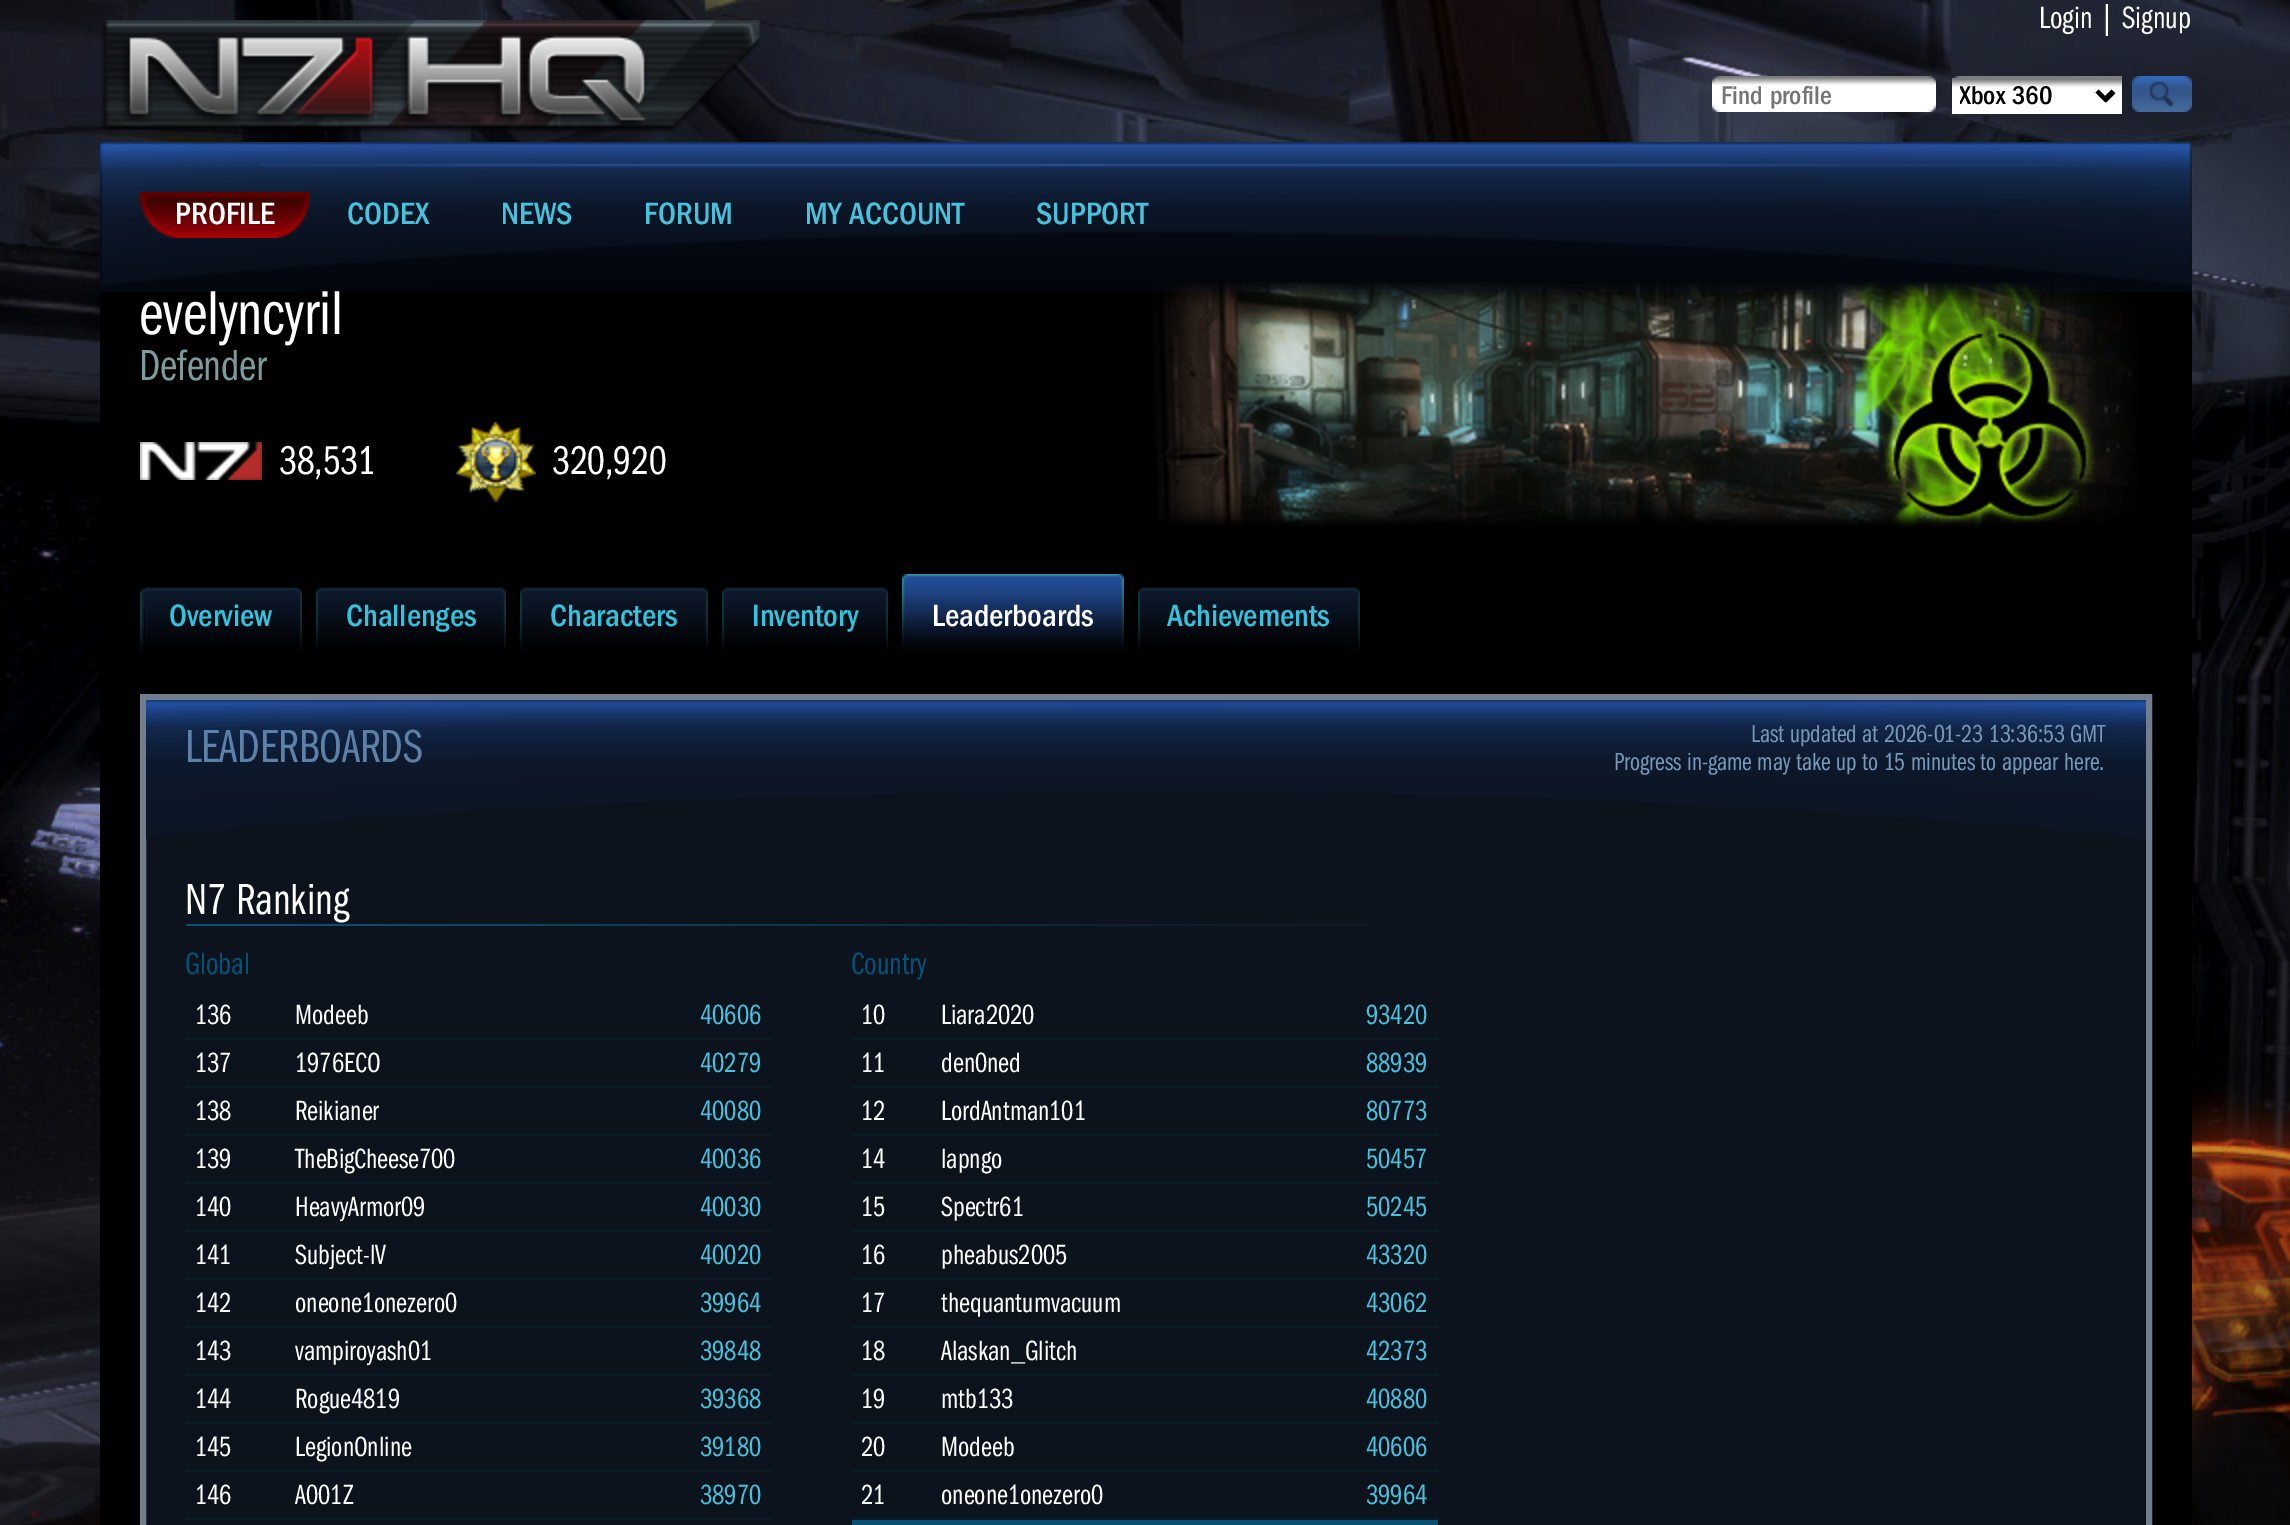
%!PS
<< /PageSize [2290 1525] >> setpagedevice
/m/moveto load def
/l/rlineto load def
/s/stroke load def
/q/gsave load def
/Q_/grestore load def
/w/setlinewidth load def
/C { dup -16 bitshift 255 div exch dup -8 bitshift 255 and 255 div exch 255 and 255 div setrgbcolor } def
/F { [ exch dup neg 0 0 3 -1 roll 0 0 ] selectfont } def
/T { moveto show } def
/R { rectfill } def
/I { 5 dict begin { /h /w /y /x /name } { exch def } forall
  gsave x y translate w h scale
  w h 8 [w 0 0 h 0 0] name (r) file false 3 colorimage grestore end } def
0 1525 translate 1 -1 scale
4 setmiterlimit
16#FFFFFF C
0 0 2290 1525 R
(1.rgb) 0 0 2290 1525 I
(2.rgb) 101 20 660 114 I
/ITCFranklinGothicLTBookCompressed-Regular 32 F
(Login | Signup) 2039 28 T
(3.rgb) 1712 76 224 36 I
/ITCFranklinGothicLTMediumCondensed-Medium 26.5 F
16#757575 C
(Find profile) 1721 104 T
(4.rgb) 1952 76 170 2 I
16#FFFFFF C
1952 103 170 11 R
(5.rgb) 1952 78 170 25 I
16#000000 C
4 w
2097 91 m 8 8 l 8 -8 l s
q
1960 78 130 34 rectclip
(Xbox 360) 1959 104 T
Q_
(6.rgb) 2132 76 60 36 I
100 292 2092 1233 R
(7.rgb) 100 142 2092 150 I
(8.rgb) 140 192 36 46 I
(9.rgb) 176 192 134 46 I
/ITCFranklinGothicLTMediumCondensed-Medium 32 F
16#FFFFFF C
(PROFILE) 175 224 T
16#48C2DC C
(CODEX) 347 224 T
(NEWS) 501 224 T
(FORUM) 644 224 T
(MY ACCOUNT) 805 224 T
(SUPPORT) 1036 224 T
/ITCFranklinGothicLTBookCompressed-Regular 64 F
16#FFFFFF C
(evelyncyril) 139 334 T
/ITCFranklinGothicLTBookCompressed-Regular 45 F
16#7E9B9B C
(Defender) 139 380 T
(10.rgb) 140 442 122 38 I
/ITCFranklinGothicLTBookCompressed-Regular 41.5 F
16#FFFFFF C
(38,531) 279 474 T
(11.rgb) 456 422 80 80 I
(320,920) 552 474 T
(12.rgb) 1152 282 985 246 I
(13.rgb) 140 587 8 65 I
(14.rgb) 146 587 156 65 I
/ITCFranklinGothicLTMediumCondensed-Medium 32 F
16#35C2DC C
(Overview) 169 626 T
(15.rgb) 316 587 6 65 I
(16.rgb) 322 587 184 65 I
(Challenges) 346 626 T
(15.rgb) 520 587 6 65 I
(17.rgb) 526 587 182 65 I
(Characters) 550 626 T
(15.rgb) 722 587 6 65 I
(18.rgb) 728 587 160 65 I
(Inventory) 752 626 T
(19.rgb) 902 574 6 78 I
(20.rgb) 908 574 216 78 I
16#FFFFFF C
(Leaderboards) 932 626 T
(15.rgb) 1138 587 6 65 I
(21.rgb) 1144 587 216 65 I
16#35C2DC C
(Achievements) 1167 626 T
16#0C131C C
146 839 2000 686 R
16#707E8D C
6 w
143 697 2006 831 rectstroke
(22.rgb) 146 700 2000 139 I
/ITCFranklinGothicLTBookCompressed-Regular 48 F
16#5C81A8 C
(LEADERBOARDS) 185 762 T
/ITCFranklinGothicLTBookCompressed-Regular 25.6 F
16#7998B9 C
(Last updated at 2026-01-23 13:36:53 GMT) 1751 742 T
(Progress in-game may take up to 15 minutes to appear here.) 1614 770 T
(23.rgb) 186 924 1225 2 I
/ITCFranklinGothicLTBookCompressed-Regular 45 F
16#FFFFFF C
(N7 Ranking) 185 914 T
/ITCFranklinGothicLTBookCompressed-Regular 32 F
16#075176 C
(Global) 185 974 T
16#0B1B27 C
186 1038 586 2 R
/ITCFranklinGothicLTBookCompressed-Regular 28.75 F
16#FFFFFF C
(136) 195 1024 T
(Modeeb) 295 1024 T
16#48C2DC C
(40606) 700 1024 T
16#0B1B27 C
186 1086 586 2 R
16#FFFFFF C
(137) 195 1072 T
(1976ECO) 295 1072 T
16#48C2DC C
(40279) 700 1072 T
16#0B1B27 C
186 1134 586 2 R
16#FFFFFF C
(138) 195 1120 T
(Reikianer) 295 1120 T
16#48C2DC C
(40080) 700 1120 T
16#0B1B27 C
186 1182 586 2 R
16#FFFFFF C
(139) 195 1168 T
(TheBigCheese700) 295 1168 T
16#48C2DC C
(40036) 700 1168 T
16#0B1B27 C
186 1230 586 2 R
16#FFFFFF C
(140) 195 1216 T
(HeavyArmor09) 295 1216 T
16#48C2DC C
(40030) 700 1216 T
16#0B1B27 C
186 1278 586 2 R
16#FFFFFF C
(141) 195 1264 T
(Subject-lV) 295 1264 T
16#48C2DC C
(40020) 700 1264 T
16#0B1B27 C
186 1326 586 2 R
16#FFFFFF C
(142) 195 1312 T
(oneone1onezero0) 295 1312 T
16#48C2DC C
(39964) 700 1312 T
16#0B1B27 C
186 1374 586 2 R
16#FFFFFF C
(143) 195 1360 T
(vampiroyash01) 295 1360 T
16#48C2DC C
(39848) 700 1360 T
16#0B1B27 C
186 1422 586 2 R
16#FFFFFF C
(144) 195 1408 T
(Rogue4819) 295 1408 T
16#48C2DC C
(39368) 700 1408 T
16#0B1B27 C
186 1470 586 2 R
16#FFFFFF C
(145) 195 1456 T
(LegionOnline) 295 1456 T
16#48C2DC C
(39180) 700 1456 T
16#0B1B27 C
186 1518 586 2 R
16#FFFFFF C
(146) 195 1504 T
(A001Z) 295 1504 T
16#48C2DC C
(38970) 700 1504 T
/ITCFranklinGothicLTBookCompressed-Regular 32 F
16#075176 C
(Country) 851 974 T
16#0B1B27 C
852 1038 586 2 R
/ITCFranklinGothicLTBookCompressed-Regular 28.75 F
16#FFFFFF C
(10) 861 1024 T
(Liara2020) 941 1024 T
16#48C2DC C
(93420) 1366 1024 T
16#0B1B27 C
852 1086 586 2 R
16#FFFFFF C
(11) 861 1072 T
(den0ned) 941 1072 T
16#48C2DC C
(88939) 1366 1072 T
16#0B1B27 C
852 1134 586 2 R
16#FFFFFF C
(12) 861 1120 T
(LordAntman101) 941 1120 T
16#48C2DC C
(80773) 1366 1120 T
16#0B1B27 C
852 1182 586 2 R
16#FFFFFF C
(14) 861 1168 T
(lapngo) 941 1168 T
16#48C2DC C
(50457) 1366 1168 T
16#0B1B27 C
852 1230 586 2 R
16#FFFFFF C
(15) 861 1216 T
(Spectr61) 941 1216 T
16#48C2DC C
(50245) 1366 1216 T
16#0B1B27 C
852 1278 586 2 R
16#FFFFFF C
(16) 861 1264 T
(pheabus2005) 941 1264 T
16#48C2DC C
(43320) 1366 1264 T
16#0B1B27 C
852 1326 586 2 R
16#FFFFFF C
(17) 861 1312 T
(thequantumvacuum) 941 1312 T
16#48C2DC C
(43062) 1366 1312 T
16#0B1B27 C
852 1374 586 2 R
16#FFFFFF C
(18) 861 1360 T
(Alaskan_Glitch) 941 1360 T
16#48C2DC C
(42373) 1366 1360 T
16#0B1B27 C
852 1422 586 2 R
16#FFFFFF C
(19) 861 1408 T
(mtb133) 941 1408 T
16#48C2DC C
(40880) 1366 1408 T
16#0B1B27 C
852 1470 586 2 R
16#FFFFFF C
(20) 861 1456 T
(Modeeb) 941 1456 T
16#48C2DC C
(40606) 1366 1456 T
16#0B1B27 C
852 1518 586 2 R
16#FFFFFF C
(21) 861 1504 T
(oneone1onezero0) 941 1504 T
16#48C2DC C
(39964) 1366 1504 T
16#075176 C
852 1520 586 5 R
showpage
